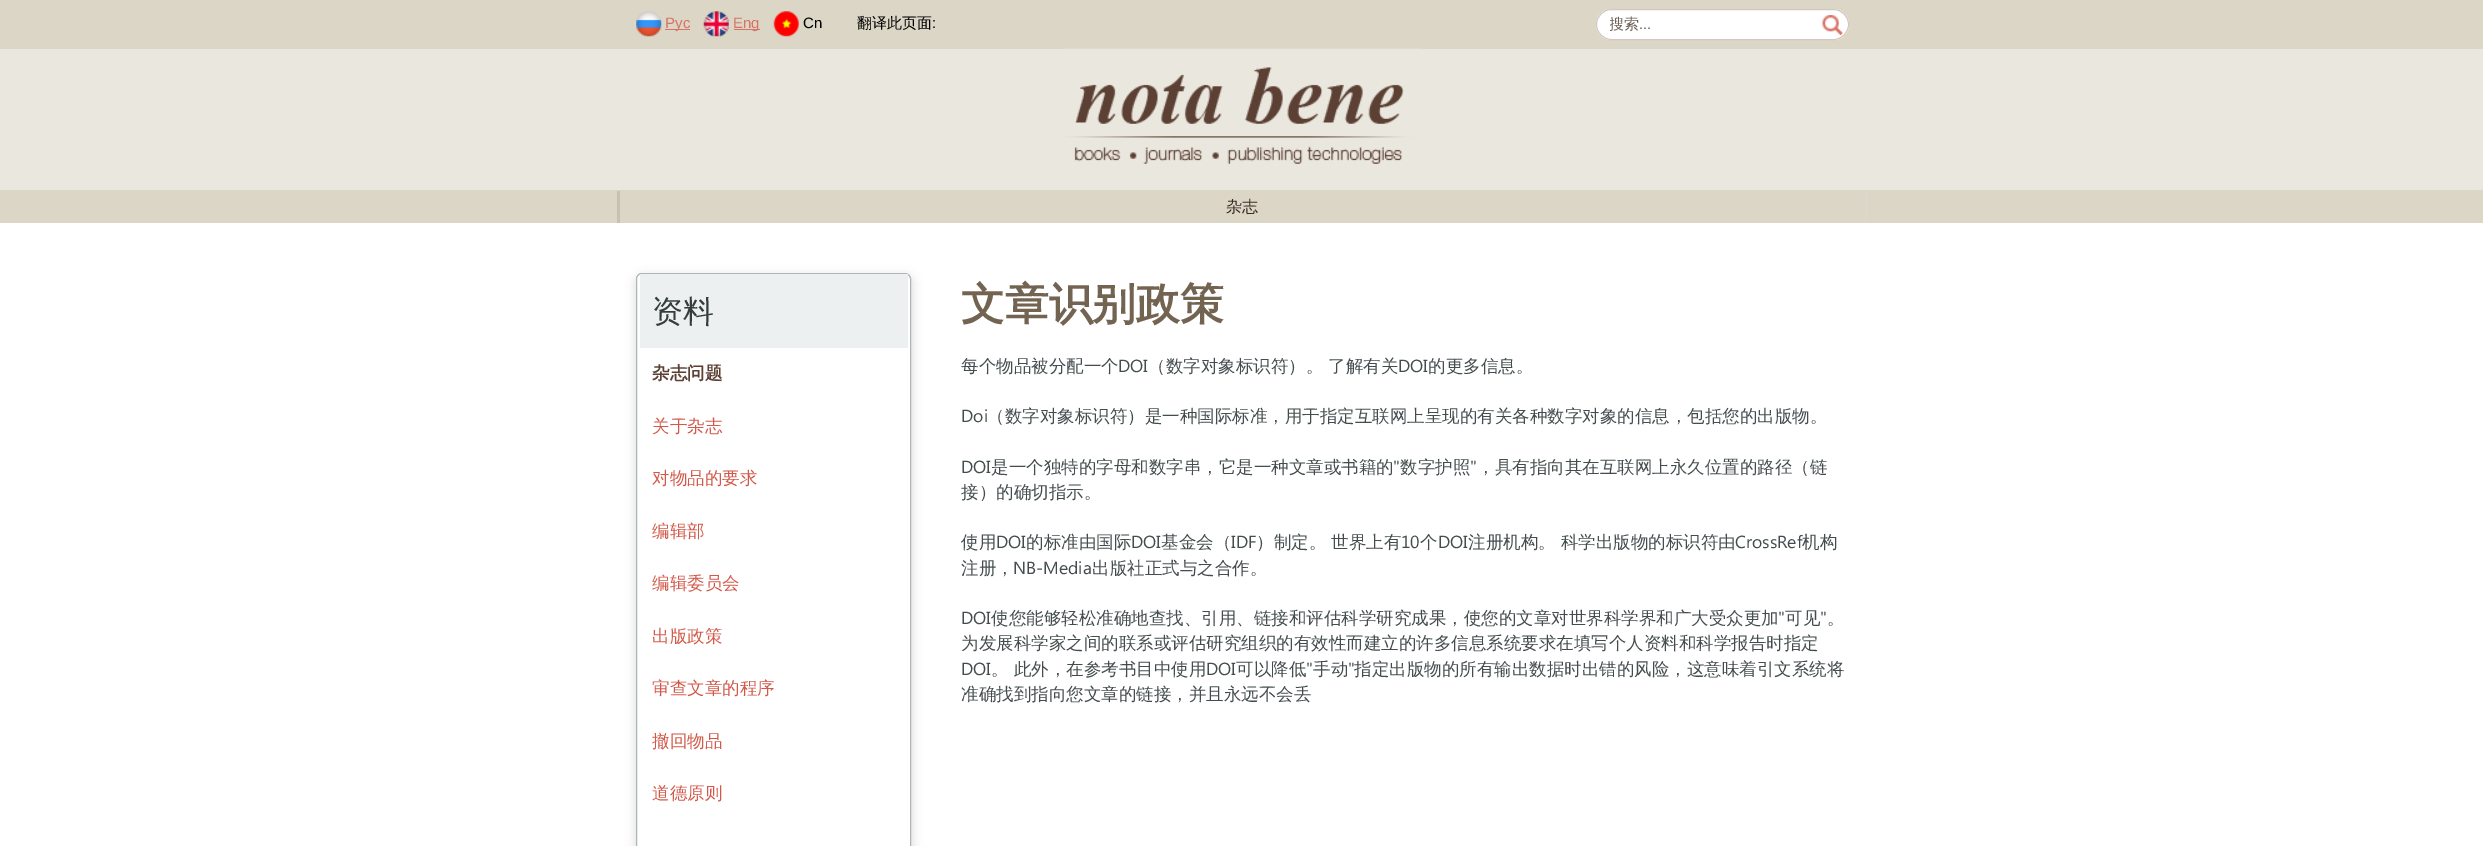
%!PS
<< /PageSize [2483 846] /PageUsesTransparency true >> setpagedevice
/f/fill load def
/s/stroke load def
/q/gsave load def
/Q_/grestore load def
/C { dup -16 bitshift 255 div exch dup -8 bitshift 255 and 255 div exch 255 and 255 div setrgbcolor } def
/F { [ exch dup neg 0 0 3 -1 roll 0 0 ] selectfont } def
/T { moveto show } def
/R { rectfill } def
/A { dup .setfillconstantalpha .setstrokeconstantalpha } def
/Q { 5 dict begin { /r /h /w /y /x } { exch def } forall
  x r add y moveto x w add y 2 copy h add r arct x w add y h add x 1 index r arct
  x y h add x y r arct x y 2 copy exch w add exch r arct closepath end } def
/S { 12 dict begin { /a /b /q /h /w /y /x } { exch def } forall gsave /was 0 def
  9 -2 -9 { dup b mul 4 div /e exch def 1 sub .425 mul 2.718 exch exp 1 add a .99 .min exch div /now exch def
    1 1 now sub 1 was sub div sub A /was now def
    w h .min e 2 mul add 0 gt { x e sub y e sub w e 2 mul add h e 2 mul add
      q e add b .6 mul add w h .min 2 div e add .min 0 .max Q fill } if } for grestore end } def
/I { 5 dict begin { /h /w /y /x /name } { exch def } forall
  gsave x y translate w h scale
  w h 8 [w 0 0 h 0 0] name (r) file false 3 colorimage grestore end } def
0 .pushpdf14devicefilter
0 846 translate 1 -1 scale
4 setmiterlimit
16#FFFFFF C
0 0 2483 846 R
16#DBD6C6 C
0 0 2483 223 R
(1.rgb) 636 11 26 26 I
16#D87265 C
665 29 25 1 R
/LiberationSans-Regular 15 F
(Рус) 665 28 T
(2.rgb) 703 11 26 26 I
734 29 26 1 R
(Eng) 733 28 T
(3.rgb) 773 11 26 26 I
16#000000 C
(Cn) 803 28 T
/WenQuanYiZenHei-Medium 15 F
(翻译此页面) 857 28 T
/LiberationSans-Regular 15 F
(:) 932 28 T
16#FFFFFF C
1596 9 253 31 15.5 Q f
(4.rgb) 1822 15 21 20 I
16#D2C8C0 C
1596.5 9.5 252 30 15 Q s
q
1610 14 213 21 rectclip
/WenQuanYiZenHei-Medium 15 F
16#6C6055 C
(搜索) 1609 29 T
Q_
16#6C6055 C
(...) 1639 29 T
16#EAE7DF C
0 49 2483 141 R
(5.rgb) 1063 48 358 116 I
16#C7C1B2 C
617 191 3 32 R
/WenQuanYiZenHei-Medium 16 F
16#3B2C25 C
(杂志) 1226 212 T
16#DBD7CC C
1865 191 3 32 R
16#C8C8C8 C
634 274 280 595 9 4.5 .5 S
16#FFFFFF C
636.5 273.5 274 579 5.5 Q q f Q_
16#AFB6B8 C
s
16#EDF0F0 C
640 274 268 74 R
/WenQuanYiZenHei-Medium 31 F
16#343C3C C
(资料) 652 322 T
/WenQuanYiZenHei-Bold 17.5 F
16#5C4034 C
(杂志问题) 652 379 T
/WenQuanYiZenHei-Medium 17.5 F
16#D2594A C
(关于杂志) 652 432 T
(对物品的要求) 652 484 T
(编辑部) 652 537 T
(编辑委员会) 652 589 T
(出版政策) 652 642 T
(审查文章的程序) 652 694 T
(撤回物品) 652 747 T
(道德原则) 652 799 T
/WenQuanYiZenHei-Bold 43.75 F
16#726450 C
(文章识别政策) 961 319 T
/WenQuanYiZenHei-Medium 17.5 F
16#444C4E C
(每个物品被分配一个) 961 372 T
(了解有关) 1328 372 T
/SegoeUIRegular-Regular 17.5 F
(DOI) 1398 372 T
/WenQuanYiZenHei-Medium 17.5 F
(的更多信息。) 1428 372 T
/SegoeUIRegular-Regular 17.5 F
(Doi) 961 422 T
/WenQuanYiZenHei-Medium 17.5 F
(（数字对象标识符）是一种国际标准，用于指定互联网上呈现的有关各种数字对象的信息，包括您的出版物。) 987 422 T
/SegoeUIRegular-Regular 17.5 F
(DOI) 961 473 T
/WenQuanYiZenHei-Medium 17.5 F
(是一个独特的字母和数字串，它是一种文章或书籍的) 991 473 T
/SegoeUIRegular-Regular 17.5 F
(") 1393 473 T
/WenQuanYiZenHei-Medium 17.5 F
(数字护照) 1400 473 T
/SegoeUIRegular-Regular 17.5 F
(") 1470 473 T
/WenQuanYiZenHei-Medium 17.5 F
(，具有指向其在互联网上永久位置的路径（链) 1477 473 T
(接）的确切指示。) 961 498 T
(使用) 961 548 T
/SegoeUIRegular-Regular 17.5 F
(DOI) 996 548 T
/WenQuanYiZenHei-Medium 17.5 F
(的标准由国际) 1026 548 T
/SegoeUIRegular-Regular 17.5 F
(DOI) 1131 548 T
/WenQuanYiZenHei-Medium 17.5 F
(基金会（) 1161 548 T
/SegoeUIRegular-Regular 17.5 F
(IDF) 1231 548 T
/WenQuanYiZenHei-Medium 17.5 F
(）制定。 世界上有) 1256 548 T
/SegoeUIRegular-Regular 17.5 F
(10) 1401 548 T
/WenQuanYiZenHei-Medium 17.5 F
(个) 1420 548 T
/SegoeUIRegular-Regular 17.5 F
(DOI) 1438 548 T
/WenQuanYiZenHei-Medium 17.5 F
(注册机构。 科学出版物的标识符由) 1468 548 T
/SegoeUIRegular-Regular 17.5 F
(CrossRef) 1735 548 T
/WenQuanYiZenHei-Medium 17.5 F
(机构) 1802 548 T
(注册，) 961 574 T
/SegoeUIRegular-Regular 17.5 F
(NB-Media) 1013 574 T
/WenQuanYiZenHei-Medium 17.5 F
(出版社正式与之合作。) 1092 574 T
/SegoeUIRegular-Regular 17.5 F
(DOI) 961 624 T
/WenQuanYiZenHei-Medium 17.5 F
(使您能够轻松准确地查找、引用、链接和评估科学研究成果，使您的文章对世界科学界和广大受众更加) 991 624 T
/SegoeUIRegular-Regular 17.5 F
(") 1778 624 T
/WenQuanYiZenHei-Medium 17.5 F
(可见) 1785 624 T
/SegoeUIRegular-Regular 17.5 F
(") 1820 624 T
/WenQuanYiZenHei-Medium 17.5 F
(。) 1827 624 T
(为发展科学家之间的联系或评估研究组织的有效性而建立的许多信息系统要求在填写个人资料和科学报告时指定) 961 649 T
/SegoeUIRegular-Regular 17.5 F
(DOI) 961 675 T
/WenQuanYiZenHei-Medium 17.5 F
(。 此外，在参考书目中使用) 991 675 T
/SegoeUIRegular-Regular 17.5 F
(DOI) 1206 675 T
/WenQuanYiZenHei-Medium 17.5 F
(可以降低) 1236 675 T
/SegoeUIRegular-Regular 17.5 F
(") 1306 675 T
/WenQuanYiZenHei-Medium 17.5 F
(手动) 1313 675 T
/SegoeUIRegular-Regular 17.5 F
(") 1348 675 T
/WenQuanYiZenHei-Medium 17.5 F
(指定出版物的所有输出数据时出错的风险，这意味着引文系统将) 1354 675 T
(准确找到指向您文章的链接，并且永远不会丢) 961 700 T
/SegoeUIRegular-Regular 17.5 F
(DOI) 1118 372 T
/WenQuanYiZenHei-Medium 17.5 F
(（数字对象标识符）。) 1148 372 T
.poppdf14devicefilter showpage
